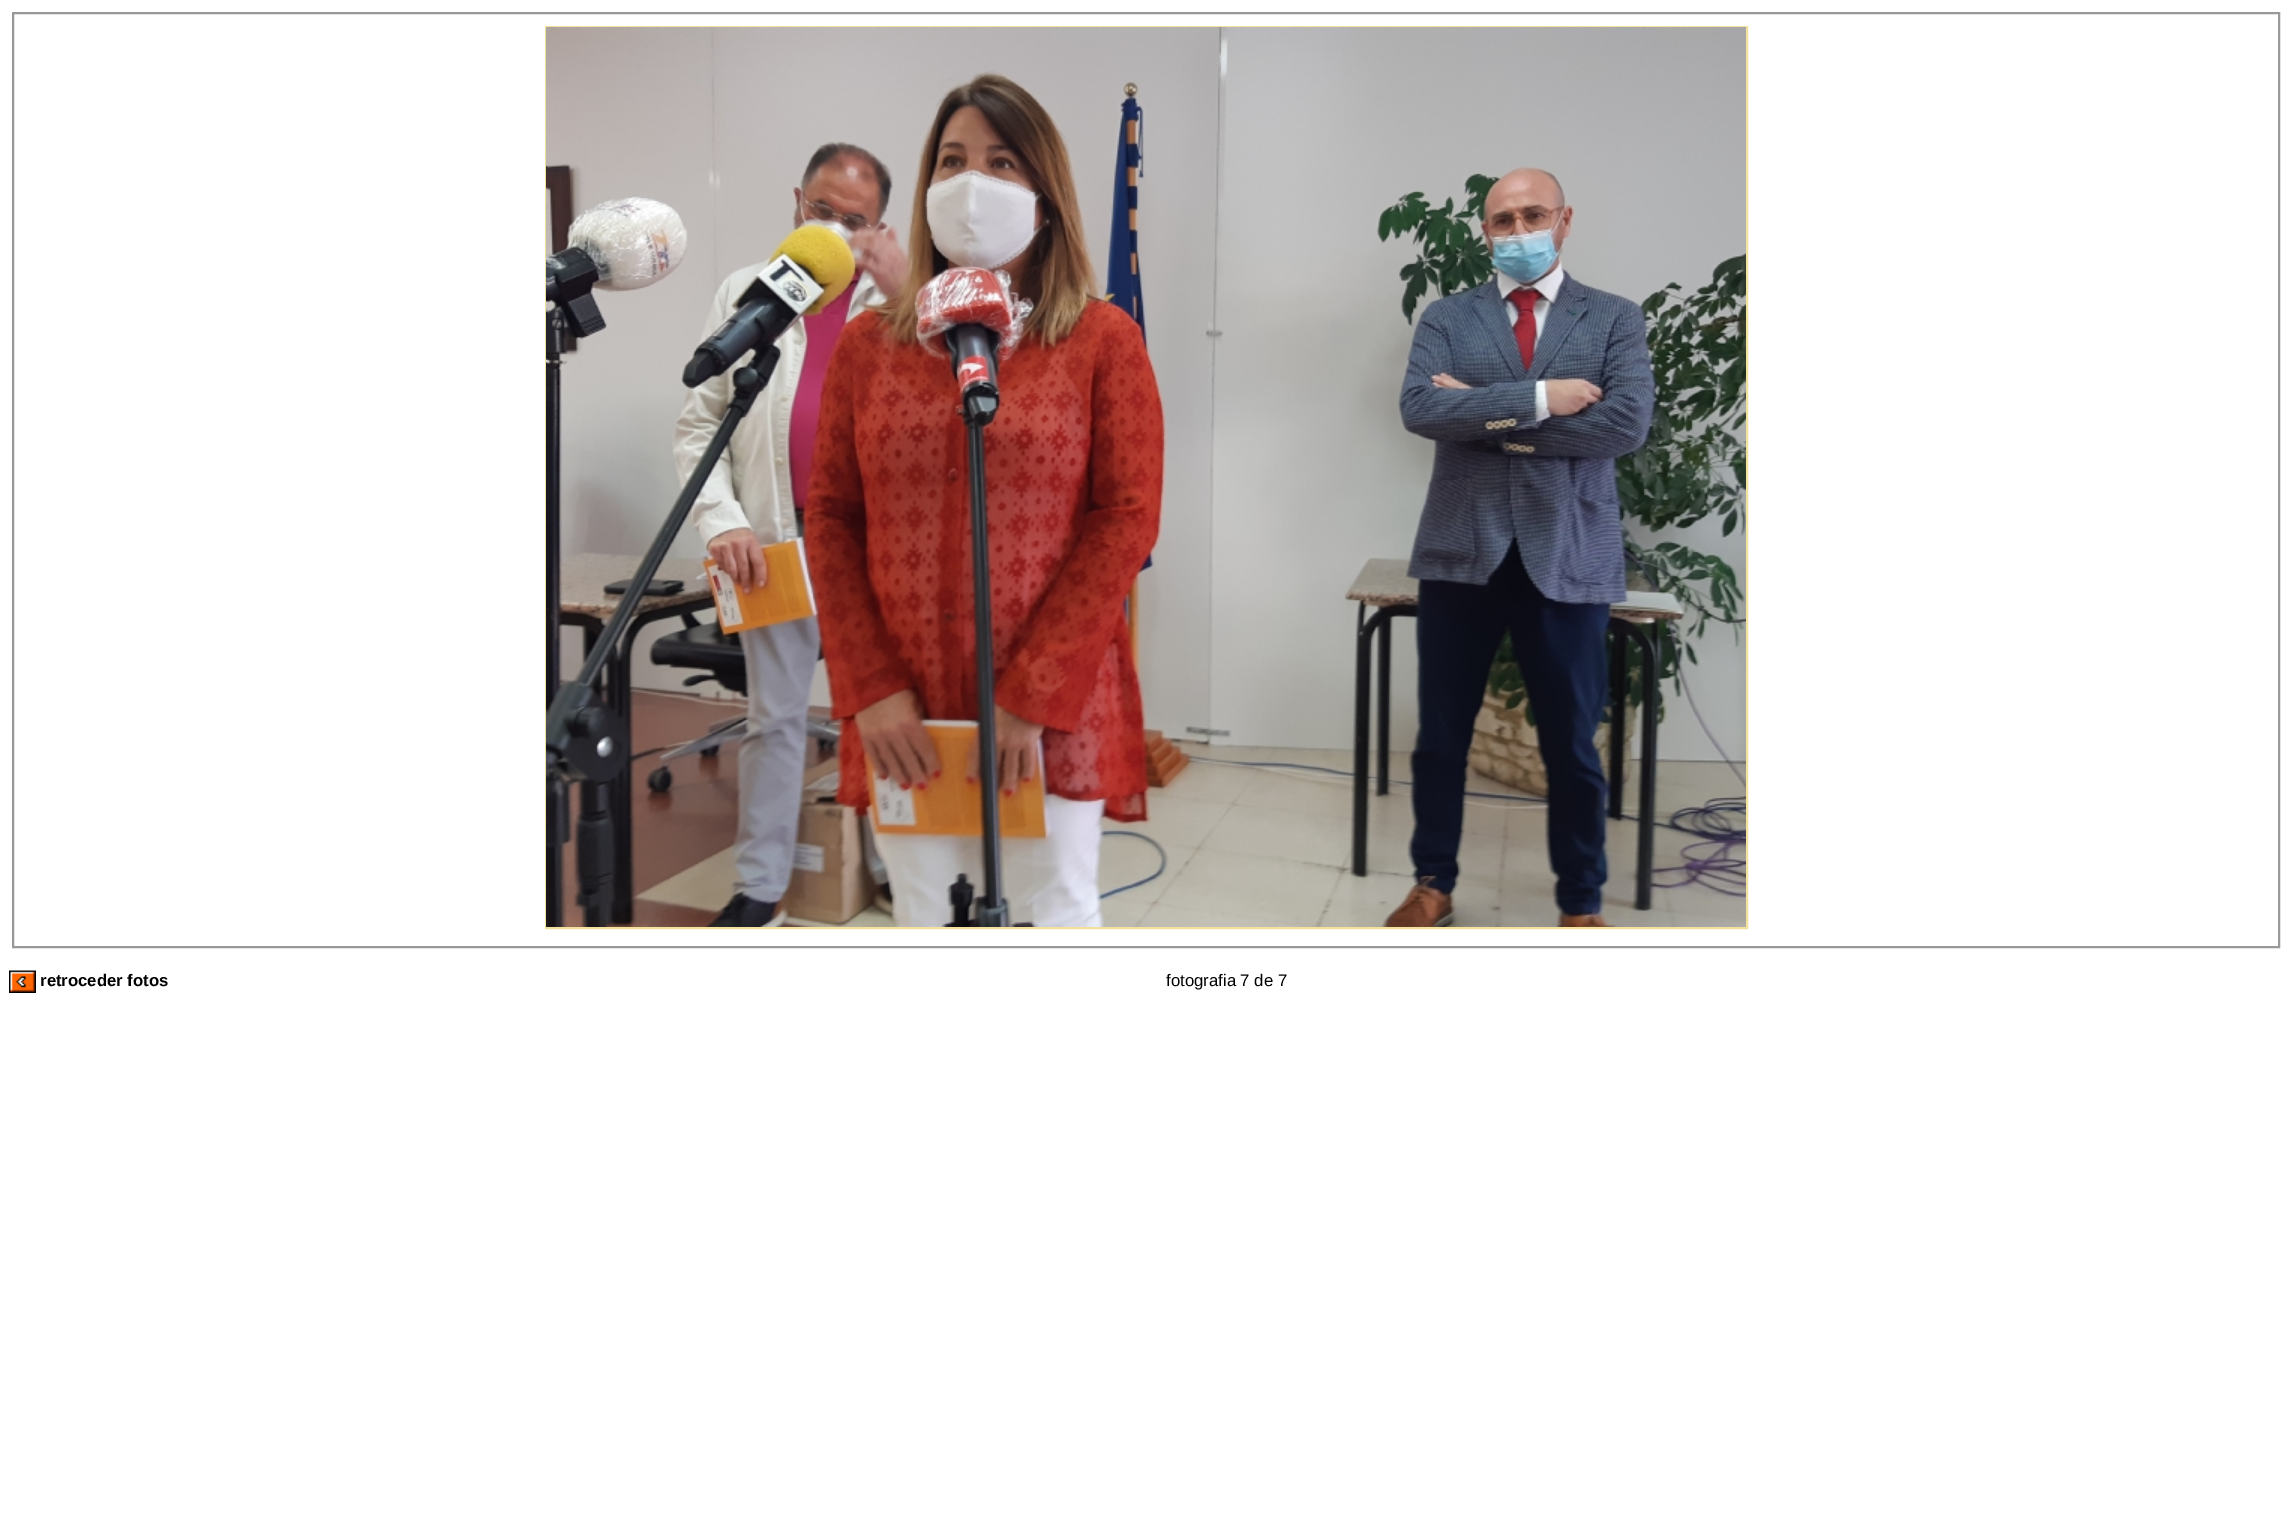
%!PS
<< /PageSize [2291 1528] >> setpagedevice
/w/setlinewidth load def
/C { dup -16 bitshift 255 div exch dup -8 bitshift 255 and 255 div exch 255 and 255 div setrgbcolor } def
/F { [ exch dup neg 0 0 3 -1 roll 0 0 ] selectfont } def
/T { moveto show } def
/R { rectfill } def
/I { 5 dict begin { /h /w /y /x /name } { exch def } forall
  gsave x y translate w h scale
  w h 8 [w 0 0 h 0 0] name (r) file false 3 colorimage grestore end } def
0 1528 translate 1 -1 scale
4 setmiterlimit
16#FFFFFF C
0 0 2291 1528 R
16#999999 C
2 w
13 13 2266 934 rectstroke
16#F2E09D C
546 27 1201 901 rectstroke
(1.rgb) 546 27 1200 900 I
(2.rgb) 9 970 27 23 I
/LiberationSans-Bold 16.75 F
16#000000 C
(retroceder fotos) 40 986 T
/LiberationSans-Regular 16.75 F
(fotografia 7 de 7) 1166 986 T
showpage
